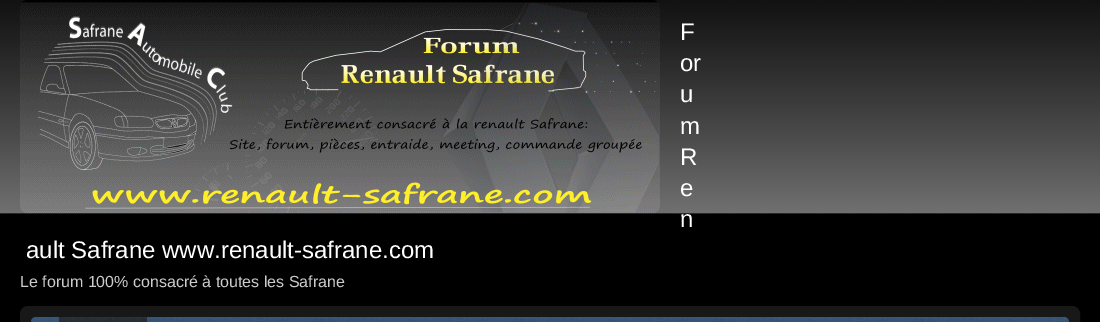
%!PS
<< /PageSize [1100 322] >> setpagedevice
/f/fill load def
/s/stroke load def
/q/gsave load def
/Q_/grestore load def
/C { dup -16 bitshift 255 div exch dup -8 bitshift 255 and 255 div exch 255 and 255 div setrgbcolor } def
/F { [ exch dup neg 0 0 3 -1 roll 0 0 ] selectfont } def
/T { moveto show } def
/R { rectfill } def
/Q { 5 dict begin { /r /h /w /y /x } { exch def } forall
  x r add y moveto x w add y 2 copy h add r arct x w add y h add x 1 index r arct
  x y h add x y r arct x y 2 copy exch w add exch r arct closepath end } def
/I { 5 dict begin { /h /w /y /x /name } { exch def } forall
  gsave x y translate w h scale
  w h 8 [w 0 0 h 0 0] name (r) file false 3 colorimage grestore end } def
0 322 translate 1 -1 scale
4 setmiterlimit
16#FFFFFF C
0 0 1100 322 R
(1.rgb) 0 0 1100 322 I
(2.rgb) 20 0 640 213 I
/LiberationSans-Regular 24 F
(F) 680 40 T
(or) 680 71 T
(u) 680 102 T
(m) 680 134 T
(R) 680 165 T
(e) 680 196 T
(n) 680 227 T
(ault Safrane www.renault-safrane.com) 26 258 T
/LiberationSans-Regular 16 F
16#CCCCCC C
(Le forum 100% consacré à toutes les Safrane) 20 287 T
16#181818 C
20.5 306.5 1059 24 7.5 Q q f Q_
s
16#1A4066 C
31 317 1038 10 5 Q f
(3.rgb) 31 317 1038 5 I
16#181F27 C
59 317 88 5 R
(4.rgb) 59 317 88 5 I
showpage
